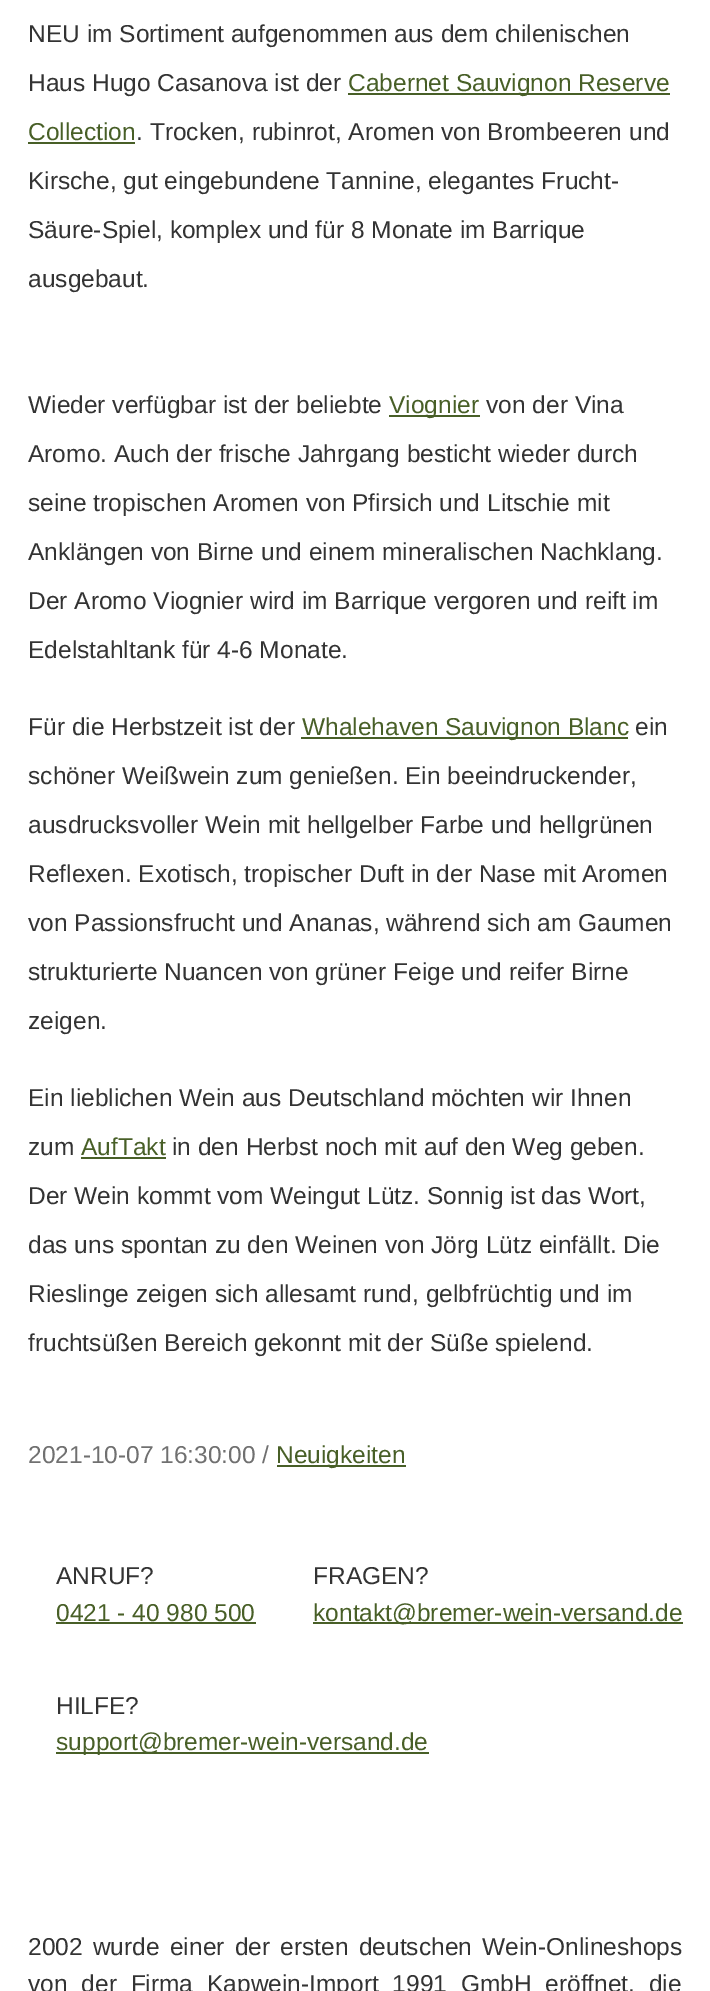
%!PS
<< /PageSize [710 1991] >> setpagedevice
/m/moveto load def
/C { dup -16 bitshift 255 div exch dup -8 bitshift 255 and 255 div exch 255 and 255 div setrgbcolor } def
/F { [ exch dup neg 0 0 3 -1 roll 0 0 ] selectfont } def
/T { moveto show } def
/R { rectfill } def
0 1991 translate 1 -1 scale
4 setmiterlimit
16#FFFFFF C
0 0 710 1991 R
/LiberationSans-Regular 24.5 F
16#333333 C
(NEU im Sortiment aufgenommen aus dem chilenischen) 28 42 T
(Haus Hugo Casanova ist der) 28 91 T
16#485F27 C
348 93 322 2 R
(Cabernet Sauvignon Reserve) 348 91 T
(Collection) 28 140 T
28 142 107 2 R
16#333333 C
(. Trocken, rubinrot, Aromen von Brombeeren und) 136 140 T
(Kirsche, gut eingebundene Tannine, elegantes Frucht-) 28 189 T
(Säure-Spiel, komplex und für 8 Monate im Barrique) 28 238 T
(ausgebaut.) 28 287 T
(Wieder verfügbar ist der beliebte) 28 413 T
16#485F27 C
389 415 91 2 R
(Viognier) 389 413 T
16#333333 C
(von der Vina) 486 413 T
(Aromo. Auch der frische Jahrgang besticht wieder durch) 28 462 T
(seine tropischen Aromen von Pfirsich und Litschie mit) 28 511 T
(Anklängen von Birne und einem mineralischen Nachklang.) 28 560 T
(Der Aromo Viognier wird im Barrique vergoren und reift im) 28 609 T
(Edelstahltank für 4-6 Monate.) 28 658 T
(Für die Herbstzeit ist der) 28 735 T
16#485F27 C
301 737 327 2 R
(Whalehaven Sauvignon Blanc) 302 735 T
16#333333 C
(ein) 635 735 T
(schöner Weißwein zum genießen. Ein beeindruckender,) 28 784 T
(ausdrucksvoller Wein mit hellgelber Farbe und hellgrünen) 28 833 T
(Reflexen. Exotisch, tropischer Duft in der Nase mit Aromen) 28 882 T
(von Passionsfrucht und Ananas, während sich am Gaumen) 28 931 T
(strukturierte Nuancen von grüner Feige und reifer Birne) 28 980 T
(zeigen.) 28 1029 T
(Ein lieblichen Wein aus Deutschland möchten wir Ihnen) 28 1106 T
(zum) 28 1155 T
16#485F27 C
(AufTakt) 81 1155 T
81 1157 85 2 R
16#333333 C
(in den Herbst noch mit auf den Weg geben.) 172 1155 T
(Der Wein kommt vom Weingut Lütz. Sonnig ist das Wort,) 28 1204 T
(das uns spontan zu den Weinen von Jörg Lütz einfällt. Die) 28 1253 T
(Rieslinge zeigen sich allesamt rund, gelbfrüchtig und im) 28 1302 T
(fruchtsüßen Bereich gekonnt mit der Süße spielend.) 28 1351 T
16#707070 C
(2021-10-07 16:30:00 /) 28 1463 T
16#485F27 C
277 1465 129 2 R
(Neuigkeiten) 276 1463 T
16#333333 C
(ANRUF?) 56 1584 T
16#485F27 C
(0421 - 40 980 500) 56 1621 T
56 1622 200 2 R
16#333333 C
(FRAGEN?) 313 1584 T
16#485F27 C
313 1622 370 2 R
(kontakt@bremer-wein-versand.de) 313 1621 T
16#333333 C
(HILFE?) 56 1714 T
16#485F27 C
56 1752 373 2 R
(support@bremer-wein-versand.de) 56 1750 T
16#333333 C
28 1955 m 3.5 0 32 (2002 wurde einer der ersten deutschen Wein-Onlineshops) widthshow
28 1992 m 7 0 32 (von der Firma Kapwein-Import 1991 GmbH eröffnet, die) widthshow
showpage
